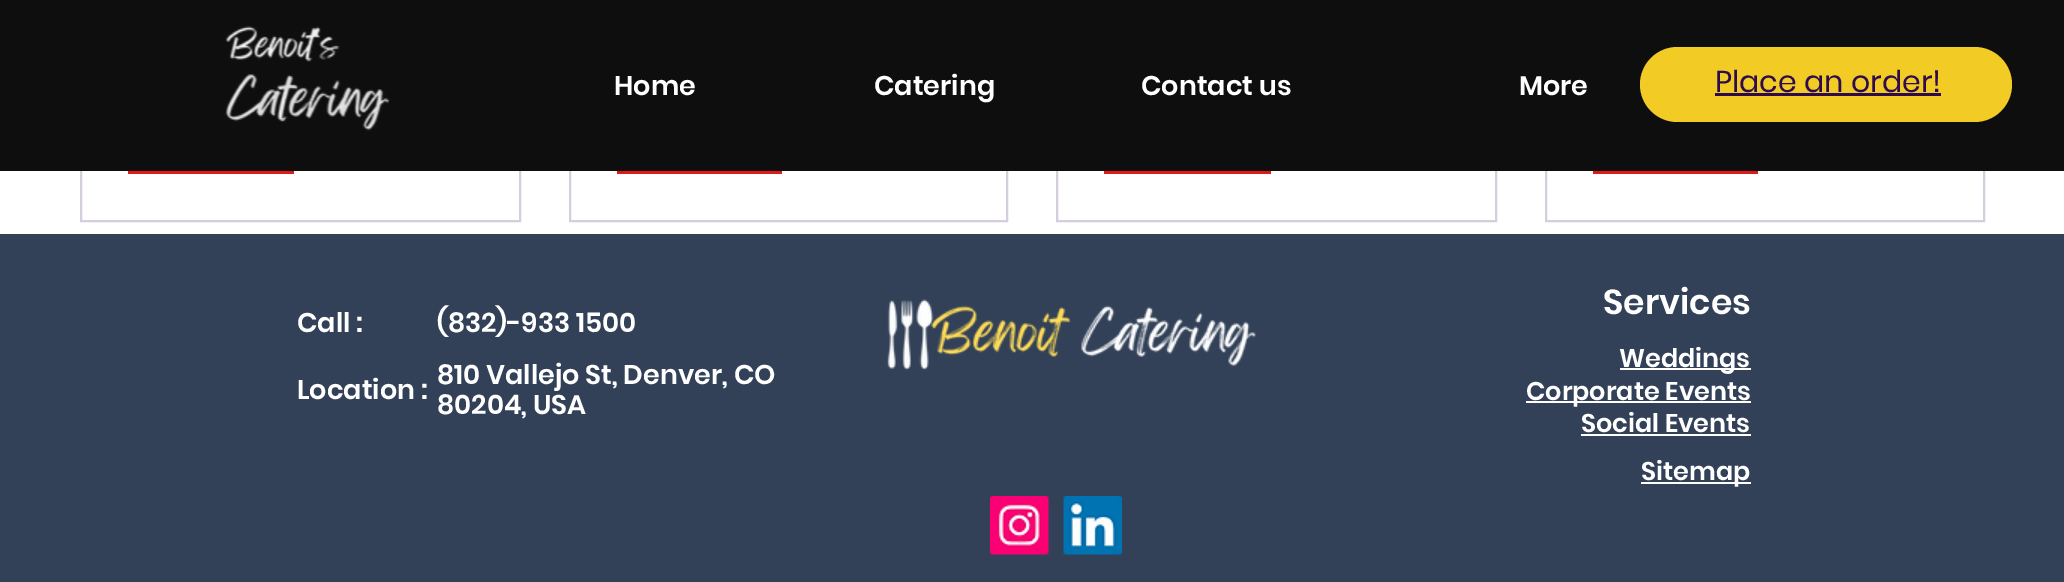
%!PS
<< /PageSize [2064 582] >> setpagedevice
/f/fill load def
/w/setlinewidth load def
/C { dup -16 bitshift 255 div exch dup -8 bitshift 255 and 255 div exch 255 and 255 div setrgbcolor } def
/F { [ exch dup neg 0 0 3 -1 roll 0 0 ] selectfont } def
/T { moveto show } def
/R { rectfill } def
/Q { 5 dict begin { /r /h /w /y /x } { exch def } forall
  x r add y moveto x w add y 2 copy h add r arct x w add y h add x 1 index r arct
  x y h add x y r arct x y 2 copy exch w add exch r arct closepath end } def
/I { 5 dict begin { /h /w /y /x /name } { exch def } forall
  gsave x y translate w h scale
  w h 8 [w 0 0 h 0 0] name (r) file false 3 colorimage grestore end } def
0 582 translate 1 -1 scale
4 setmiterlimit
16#FFFFFF C
0 0 2064 582 R
16#D5CEDC C
2 w
81 -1 439 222 rectstroke
16#E11818 C
128 171 166 3 R
16#D5CEDC C
570 -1 437 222 rectstroke
16#E11818 C
617 171 165 3 R
16#D5CEDC C
1057 -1 439 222 rectstroke
16#E11818 C
1104 171 167 3 R
16#D5CEDC C
1546 -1 438 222 rectstroke
16#E11818 C
1593 171 165 3 R
16#0E0E0F C
0 0 2064 171 R
(1.rgb) 225 26 165 105 I
/Poppins-SemiBold 27 F
16#FFFFFF C
(Home) 614 95 T
(Catering) 874 95 T
(Contact us) 1141 95 T
(More) 1519 95 T
16#F2CB24 C
1640 47 372 75 37.5 Q f
/Poppins-Regular 30 F
16#2D0B4E C
(Place an order!) 1715 92 T
1715 93 226 3 R
16#324158 C
0 234 2064 348 R
/Poppins-SemiBold 27 F
16#FFFFFF C
(Call :) 297 332 T
(\(832\)-933 1500) 437 332 T
(Location :) 297 399 T
(810 Vallejo St, Denver, CO) 437 384 T
(80204, USA) 437 414 T
(2.rgb) 887 299 369 72 I
/Poppins-SemiBold 34.5 F
(Services) 1603 314 T
1620 368 131 2 R
/Poppins-SemiBold 25.5 F
(Weddings) 1619 367 T
1526 401 225 2 R
(Corporate Events) 1526 400 T
(Social Events) 1581 432 T
1581 434 170 2 R
1641 482 110 2 R
(Sitemap) 1641 480 T
(3.rgb) 990 496 59 59 I
(4.rgb) 1063 496 59 59 I
showpage
